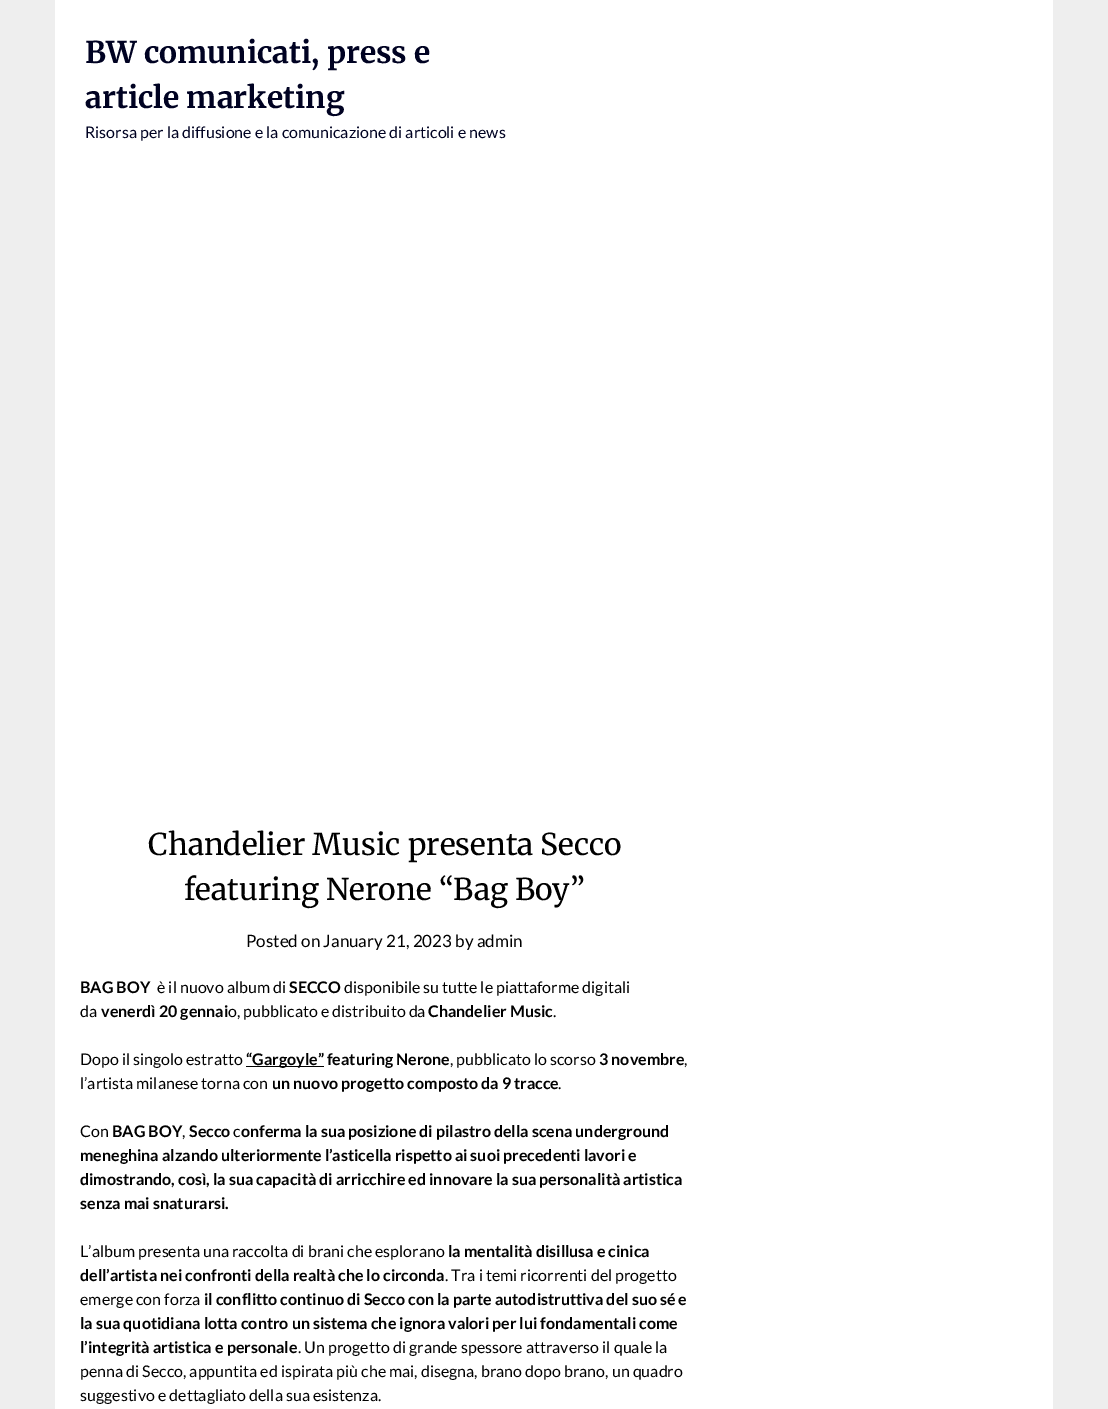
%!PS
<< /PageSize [1108 1409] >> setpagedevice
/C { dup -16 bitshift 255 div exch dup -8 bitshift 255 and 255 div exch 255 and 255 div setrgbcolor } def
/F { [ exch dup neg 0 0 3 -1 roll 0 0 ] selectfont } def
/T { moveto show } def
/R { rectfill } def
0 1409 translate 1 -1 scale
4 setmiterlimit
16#EEEEEE C
0 0 1108 1409 R
16#FFFFFF C
55 0 998 1409 R
/Merriweather-Bold 30 F
16#000222 C
(BW comunicati, press e) 85 63 T
(article marketing) 85 108 T
/Lato-Regular 16 F
(Risorsa per la diffusione e la comunicazione di articoli e news) 85 138 T
/Merriweather-Regular 30 F
16#000000 C
(Chandelier Music presenta Secco) 148 855 T
(featuring Nerone “Bag Boy”) 184 900 T
/Lato-Regular 17 F
(Posted on January 21, 2023 by admin) 246 947 T
/Lato-Bold 16 F
(BAG BOY) 80 993 T
/Lato-Regular 16 F
(è il nuovo album di) 157 993 T
/Lato-Bold 16 F
(SECCO) 289 993 T
/Lato-Regular 16 F
(disponibile su tutte le piattaforme digitali) 344 993 T
(da) 80 1017 T
/Lato-Bold 16 F
(venerdì 20 gennai) 101 1017 T
/Lato-Regular 16 F
(o, pubblicato e distribuito da) 228 1017 T
/Lato-Bold 16 F
(Chandelier Music) 428 1017 T
/Lato-Regular 16 F
(.) 553 1017 T
(Dopo il singolo estratto) 80 1065 T
246 1066 78 1 R
/Lato-Bold 16 F
(“Gargoyle” featuring Nerone) 246 1065 T
/Lato-Regular 16 F
(, pubblicato lo scorso) 450 1065 T
/Lato-Bold 16 F
(3 novembre) 599 1065 T
/Lato-Regular 16 F
(,) 684 1065 T
(l’artista milanese torna con) 80 1089 T
/Lato-Bold 16 F
(un nuovo progetto composto da 9 tracce) 272 1089 T
/Lato-Regular 16 F
(.) 558 1089 T
(Con) 80 1137 T
/Lato-Bold 16 F
(BAG BOY) 112 1137 T
/Lato-Regular 16 F
(,) 182 1137 T
/Lato-Bold 16 F
(Secco) 189 1137 T
/Lato-Regular 16 F
(c) 233 1137 T
/Lato-Bold 16 F
(onferma la sua posizione di pilastro della scena underground) 241 1137 T
(meneghina alzando ulteriormente l’asticella rispetto ai suoi precedenti lavori e) 80 1161 T
(dimostrando, così, la sua capacità di arricchire ed innovare la sua personalità artistica) 80 1185 T
(senza mai snaturarsi.) 80 1209 T
/Lato-Regular 16 F
(L’album presenta una raccolta di brani che esplorano) 80 1257 T
/Lato-Bold 16 F
(la mentalità disillusa e cinica) 448 1257 T
(dell’artista nei confronti della realtà che lo circonda) 80 1281 T
/Lato-Regular 16 F
(. Tra i temi ricorrenti del progetto) 445 1281 T
(emerge con forza) 80 1305 T
/Lato-Bold 16 F
(il conflitto continuo di Secco con la parte autodistruttiva del suo sé e) 204 1305 T
(la sua quotidiana lotta contro un sistema che ignora valori per lui fondamentali come) 80 1329 T
(l’integrità artistica e personale) 80 1353 T
/Lato-Regular 16 F
(. Un progetto di grande spessore attraverso il quale la) 298 1353 T
(penna di Secco, appuntita ed ispirata più che mai, disegna, brano dopo brano, un quadro) 80 1377 T
(suggestivo e dettagliato della sua esistenza.) 80 1401 T
showpage
